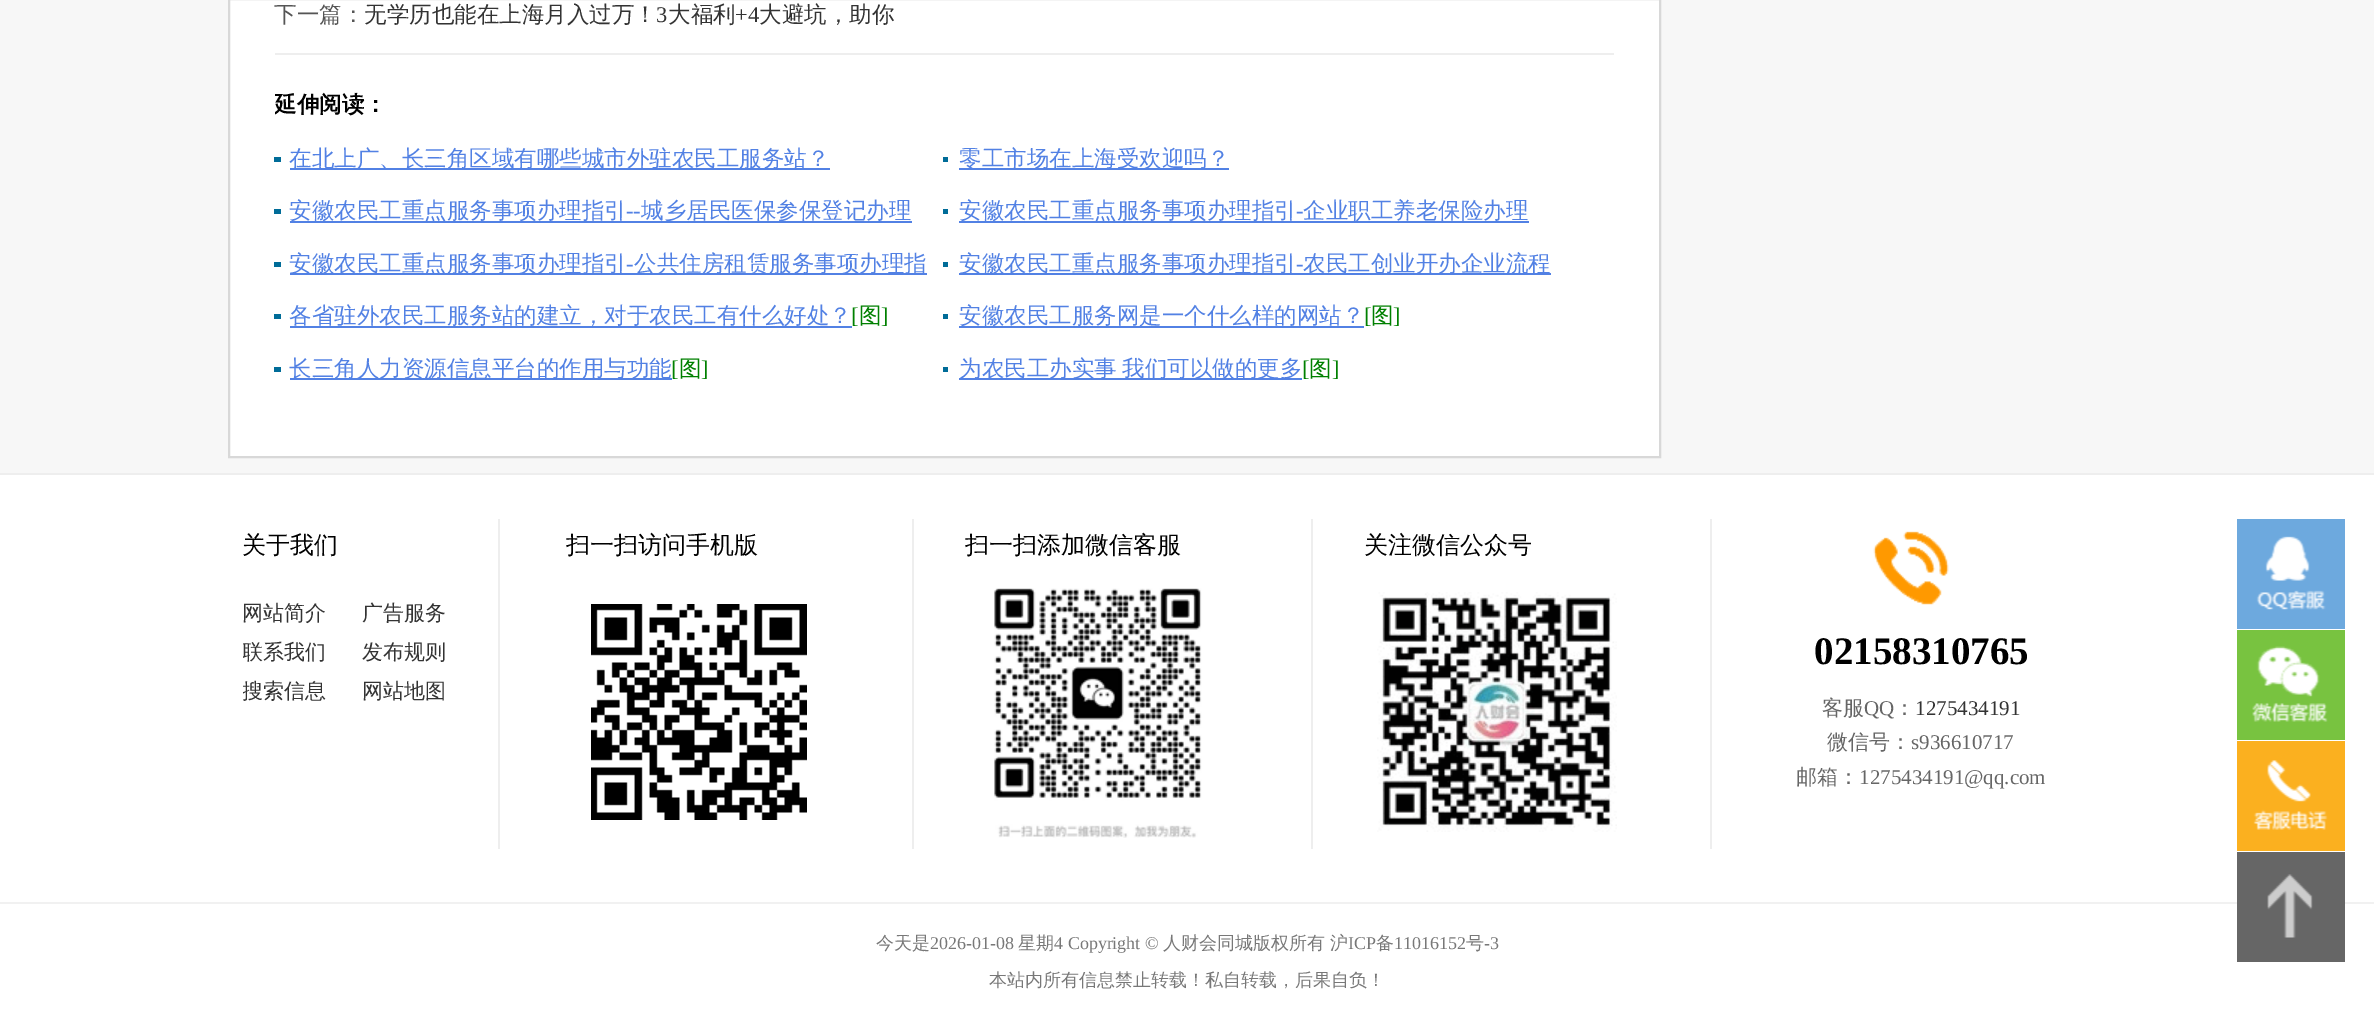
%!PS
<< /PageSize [2374 1023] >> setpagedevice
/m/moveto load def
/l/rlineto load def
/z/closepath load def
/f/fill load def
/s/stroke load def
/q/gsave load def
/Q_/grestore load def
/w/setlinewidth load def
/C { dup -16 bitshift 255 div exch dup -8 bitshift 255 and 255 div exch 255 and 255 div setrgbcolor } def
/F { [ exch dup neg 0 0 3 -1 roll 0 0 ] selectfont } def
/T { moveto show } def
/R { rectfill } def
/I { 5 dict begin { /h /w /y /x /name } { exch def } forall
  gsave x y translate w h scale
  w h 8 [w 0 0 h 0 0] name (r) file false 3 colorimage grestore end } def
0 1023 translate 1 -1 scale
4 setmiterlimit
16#FFFFFF C
0 0 2374 1023 R
16#F7F7F7 C
0 0 2374 473 R
16#FFFFFF C
229 -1 m 1431 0 l 0 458 l -1431 0 l z q f Q_
16#D8D8D8 C
2 w
s
16#EEEEEE C
275 53 1339 2 R
/WenQuanYiZenHei-Medium 22.5 F
16#555555 C
(下一篇：) 274 22 T
16#333333 C
(无学历也能在上海月入过万！) 364 22 T
/LiberationSerif-Regular 22.5 F
(3) 656 22 T
/WenQuanYiZenHei-Medium 22.5 F
(大福利) 668 22 T
/LiberationSerif-Regular 22.5 F
(+4) 735 22 T
/WenQuanYiZenHei-Medium 22.5 F
(大避坑，助你) 759 22 T
q
275 69 1339 350 rectclip
/WenQuanYiZenHei-Bold 22.5 F
16#000000 C
(延伸阅读：) 274 112 T
Q_
16#006C98 C
274 157 7 5 R
16#5281E4 C
290 168 540 2 R
(在北上广、长三角区域有哪些城市外驻农民工服务站？) 289 166 T
16#006C98 C
943 157 5 5 R
16#5281E4 C
959 168 270 2 R
(零工市场在上海受欢迎吗？) 959 166 T
16#006C98 C
274 209 7 5 R
16#5281E4 C
290 221 622 2 R
(安徽农民工重点服务事项办理指引) 289 218 T
/LiberationSerif-Regular 22.5 F
(--) 626 218 T
/WenQuanYiZenHei-Medium 22.5 F
(城乡居民医保参保登记办理) 641 218 T
16#006C98 C
943 209 5 5 R
16#5281E4 C
959 221 570 2 R
(安徽农民工重点服务事项办理指引) 959 218 T
/LiberationSerif-Regular 22.5 F
(-) 1296 218 T
/WenQuanYiZenHei-Medium 22.5 F
(企业职工养老保险办理) 1303 218 T
16#006C98 C
274 262 7 5 R
16#5281E4 C
290 273 637 2 R
(安徽农民工重点服务事项办理指引) 289 271 T
/LiberationSerif-Regular 22.5 F
(-) 626 271 T
/WenQuanYiZenHei-Medium 22.5 F
(公共住房租赁服务事项办理指) 634 271 T
16#006C98 C
943 262 5 5 R
16#5281E4 C
959 273 592 2 R
(安徽农民工重点服务事项办理指引) 959 271 T
/LiberationSerif-Regular 22.5 F
(-) 1296 271 T
/WenQuanYiZenHei-Medium 22.5 F
(农民工创业开办企业流程) 1303 271 T
16#006C98 C
274 314 7 5 R
16#5281E4 C
290 326 562 2 R
(各省驻外农民工服务站的建立，对于农民工有什么好处？) 289 323 T
/LiberationSerif-Regular 22.5 F
16#008000 C
([) 851 323 T
/WenQuanYiZenHei-Medium 22.5 F
(图) 859 323 T
/LiberationSerif-Regular 22.5 F
(]) 881 323 T
16#006C98 C
943 314 5 5 R
16#5281E4 C
959 326 405 2 R
/WenQuanYiZenHei-Medium 22.5 F
(安徽农民工服务网是一个什么样的网站？) 959 323 T
/LiberationSerif-Regular 22.5 F
16#008000 C
([) 1364 323 T
/WenQuanYiZenHei-Medium 22.5 F
(图) 1371 323 T
/LiberationSerif-Regular 22.5 F
(]) 1393 323 T
16#006C98 C
274 367 7 5 R
16#5281E4 C
290 378 382 2 R
/WenQuanYiZenHei-Medium 22.5 F
(长三角人力资源信息平台的作用与功能) 289 376 T
/LiberationSerif-Regular 22.5 F
16#008000 C
([) 671 376 T
/WenQuanYiZenHei-Medium 22.5 F
(图) 679 376 T
/LiberationSerif-Regular 22.5 F
(]) 701 376 T
16#006C98 C
943 367 5 5 R
16#5281E4 C
959 378 343 2 R
/WenQuanYiZenHei-Medium 22.5 F
959 376 m -1 0 32 (为农民工办实事 我们可以做的更多) widthshow
/LiberationSerif-Regular 22.5 F
16#008000 C
([) 1302 376 T
/WenQuanYiZenHei-Medium 22.5 F
(图) 1309 376 T
/LiberationSerif-Regular 22.5 F
(]) 1332 376 T
16#EEEEEE C
0 473 2374 2 R
498 519 2 330 R
/WenQuanYiZenHei-Medium 24 F
16#000000 C
(关于我们) 242 553 T
/WenQuanYiZenHei-Medium 21 F
16#333333 C
(网站简介) 242 620 T
(广告服务) 362 620 T
q
243 635 120 39 rectclip
(联系我们) 242 659 T
Q_
(发布规则) 362 659 T
q
243 674 120 39 rectclip
(搜索信息) 242 698 T
Q_
(网站地图) 362 698 T
16#EEEEEE C
912 519 2 330 R
/WenQuanYiZenHei-Medium 24 F
16#000000 C
(扫一扫访问手机版) 566 553 T
(1.rgb) 591 604 216 216 I
16#EEEEEE C
1311 519 2 330 R
16#000000 C
(扫一扫添加微信客服) 965 553 T
(2.rgb) 994 588 208 250 I
16#EEEEEE C
1710 519 2 330 R
16#000000 C
(关注微信公众号) 1364 553 T
(3.rgb) 1377 592 240 240 I
(4.rgb) 1873 531 76 74 I
/LiberationSerif-Bold 39 F
(02158310765) 1814 664 T
/WenQuanYiZenHei-Medium 21 F
16#666666 C
(客服) 1822 715 T
/LiberationSerif-Regular 21 F
(QQ) 1864 715 T
/WenQuanYiZenHei-Medium 21 F
(：) 1894 715 T
/LiberationSerif-Regular 21 F
16#333333 C
(1275434191) 1915 715 T
/WenQuanYiZenHei-Medium 21 F
16#666666 C
(微信号：) 1827 749 T
/LiberationSerif-Regular 21 F
(s936610717) 1911 749 T
/WenQuanYiZenHei-Medium 21 F
(邮箱：) 1796 784 T
/LiberationSerif-Regular 21 F
(1275434191@qq.com) 1859 784 T
16#F1F1F1 C
0 902 2374 2 R
/WenQuanYiZenHei-Medium 18 F
16#787878 C
(今天是) 876 949 T
/LiberationSerif-Regular 18 F
(2026-01-08) 930 949 T
/WenQuanYiZenHei-Medium 18 F
(星期) 1018 949 T
/LiberationSerif-Regular 18 F
(4 Copyright ©) 1054 949 T
/WenQuanYiZenHei-Medium 18 F
(人财会同城版权所有) 1163 949 T
(沪) 1330 949 T
/LiberationSerif-Regular 18 F
(ICP) 1348 949 T
/WenQuanYiZenHei-Medium 18 F
(备) 1376 949 T
/LiberationSerif-Regular 18 F
(11016152) 1394 949 T
/WenQuanYiZenHei-Medium 18 F
(号) 1466 949 T
/LiberationSerif-Regular 18 F
(-3) 1484 949 T
/WenQuanYiZenHei-Medium 18 F
(本站内所有信息禁止转载！私自转载，后果自负！) 989 986 T
16#6DA9DE C
2237 519 108 110 R
(5.rgb) 2256 536 70 74 I
16#78C340 C
2237 630 108 110 R
(6.rgb) 2252 646 76 76 I
16#FBB01F C
2237 741 108 110 R
(7.rgb) 2253 760 75 70 I
16#666666 C
2237 852 108 110 R
(8.rgb) 2267 874 46 64 I
showpage
